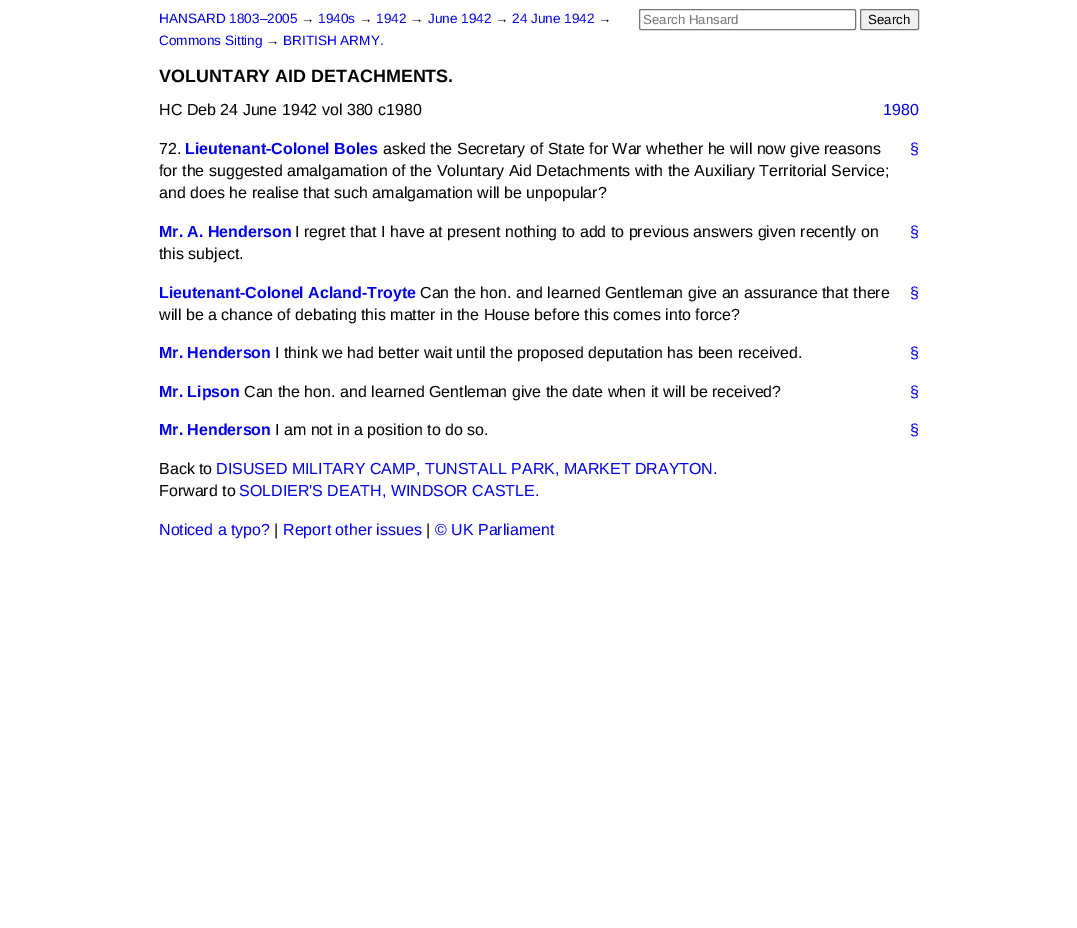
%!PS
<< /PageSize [1077 928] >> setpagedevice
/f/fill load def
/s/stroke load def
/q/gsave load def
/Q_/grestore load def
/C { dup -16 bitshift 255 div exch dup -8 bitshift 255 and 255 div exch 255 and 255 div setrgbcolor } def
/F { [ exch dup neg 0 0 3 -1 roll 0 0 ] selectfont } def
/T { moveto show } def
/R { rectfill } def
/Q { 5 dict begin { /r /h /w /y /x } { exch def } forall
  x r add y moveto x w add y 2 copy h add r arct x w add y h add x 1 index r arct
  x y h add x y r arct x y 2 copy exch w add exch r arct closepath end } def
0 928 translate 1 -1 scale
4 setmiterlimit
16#FFFFFF C
0 0 1077 928 R
/LiberationSans-Regular 13.6 F
16#0000EE C
(HANSARD 1803–2005) 159 23 T
16#000000 C
(→) 301 23 T
16#0000EE C
(1940s) 318 23 T
16#000000 C
(→) 359 23 T
16#0000EE C
(1942) 376 23 T
16#000000 C
(→) 410 23 T
16#0000EE C
(June 1942) 428 23 T
16#000000 C
(→) 495 23 T
16#0000EE C
(24 June 1942) 512 23 T
16#000000 C
(→) 598 23 T
16#0000EE C
(Commons Sitting) 159 45 T
16#000000 C
(→) 266 45 T
16#0000EE C
(BRITISH ARMY.) 283 45 T
16#767676 C
639.5 9.5 216 20 1.5 Q s
/LiberationSans-Regular 13.25 F
16#757575 C
(Search Hansard) 643 24 T
16#EFEFEF C
860.5 9.5 58 20 1.5 Q q f Q_
16#767676 C
s
16#000000 C
(Search) 868 24 T
/LiberationSans-Bold 17.9 F
(VOLUNTARY AID DETACHMENTS.) 159 82 T
/LiberationSans-Regular 16 F
(HC Deb 24 June 1942 vol 380 c1980) 159 115 T
16#0000EE C
(1980) 883 115 T
16#000000 C
(72.) 159 154 T
/LiberationSans-Bold 16 F
16#0000EE C
(Lieutenant-Colonel Boles) 185 154 T
/LiberationSans-Regular 16 F
16#000000 C
(asked the Secretary of State for War whether he will now give reasons) 383 154 T
16#0000EE C
(§) 910 154 T
16#000000 C
(for the suggested amalgamation of the Voluntary Aid Detachments with the Auxiliary Territorial Service;) 159 176 T
(and does he realise that such amalgamation will be unpopular?) 159 198 T
/LiberationSans-Bold 16 F
16#0000EE C
(Mr. A. Henderson) 159 237 T
/LiberationSans-Regular 16 F
16#000000 C
(I regret that I have at present nothing to add to previous answers given recently on) 295 237 T
16#0000EE C
(§) 910 237 T
16#000000 C
(this subject.) 159 259 T
/LiberationSans-Bold 16 F
16#0000EE C
(Lieutenant-Colonel Acland-Troyte) 159 298 T
/LiberationSans-Regular 16 F
16#000000 C
(Can the hon. and learned Gentleman give an assurance that there) 420 298 T
16#0000EE C
(§) 910 298 T
16#000000 C
(will be a chance of debating this matter in the House before this comes into force?) 159 320 T
/LiberationSans-Bold 16 F
16#0000EE C
(Mr. Henderson) 159 358 T
/LiberationSans-Regular 16 F
16#000000 C
(I think we had better wait until the proposed deputation has been received.) 275 358 T
16#0000EE C
(§) 910 358 T
/LiberationSans-Bold 16 F
(Mr. Lipson) 159 397 T
/LiberationSans-Regular 16 F
16#000000 C
(Can the hon. and learned Gentleman give the date when it will be received?) 244 397 T
16#0000EE C
(§) 910 397 T
/LiberationSans-Bold 16 F
(Mr. Henderson) 159 435 T
/LiberationSans-Regular 16 F
16#000000 C
(I am not in a position to do so.) 275 435 T
16#0000EE C
(§) 910 435 T
16#000000 C
(Back to) 159 474 T
16#0000EE C
(DISUSED MILITARY CAMP, TUNSTALL PARK, MARKET DRAYTON.) 216 474 T
16#000000 C
(Forward to) 159 496 T
16#0000EE C
(SOLDIER'S DEATH, WINDSOR CASTLE.) 239 496 T
(Noticed a typo?) 159 535 T
16#000000 C
(|) 274 535 T
16#0000EE C
(Report other issues) 283 535 T
16#000000 C
(|) 426 535 T
16#0000EE C
(© UK Parliament) 435 535 T
showpage
